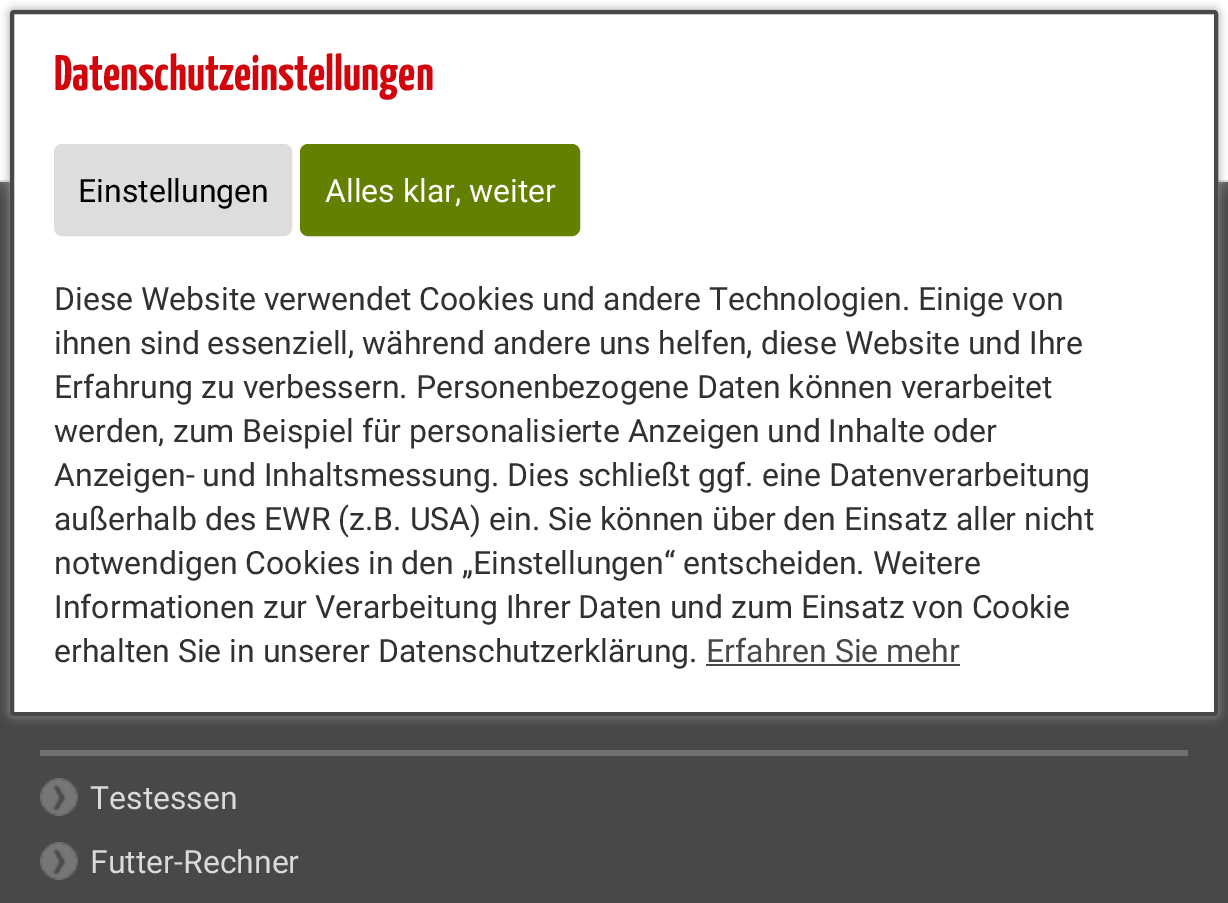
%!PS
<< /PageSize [1228 903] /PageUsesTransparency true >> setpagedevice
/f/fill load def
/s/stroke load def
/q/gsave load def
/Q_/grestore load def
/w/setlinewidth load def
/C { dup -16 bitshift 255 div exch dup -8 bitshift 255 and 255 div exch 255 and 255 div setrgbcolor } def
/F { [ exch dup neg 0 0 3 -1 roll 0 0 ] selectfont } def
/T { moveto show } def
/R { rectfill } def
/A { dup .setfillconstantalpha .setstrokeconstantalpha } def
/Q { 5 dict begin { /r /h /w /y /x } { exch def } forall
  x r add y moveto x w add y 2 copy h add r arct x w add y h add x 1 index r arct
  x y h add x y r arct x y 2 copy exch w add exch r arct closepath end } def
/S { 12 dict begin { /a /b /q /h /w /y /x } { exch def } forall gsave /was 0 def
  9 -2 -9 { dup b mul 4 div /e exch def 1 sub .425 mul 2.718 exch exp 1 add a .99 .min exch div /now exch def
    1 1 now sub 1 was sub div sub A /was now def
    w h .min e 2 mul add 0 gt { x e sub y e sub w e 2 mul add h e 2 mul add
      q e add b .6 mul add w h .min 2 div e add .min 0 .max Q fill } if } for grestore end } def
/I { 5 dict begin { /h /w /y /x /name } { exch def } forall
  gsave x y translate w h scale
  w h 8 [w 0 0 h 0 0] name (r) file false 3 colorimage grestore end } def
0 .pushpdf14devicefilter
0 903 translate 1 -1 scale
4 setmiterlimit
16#484848 C
0 0 1228 903 R
16#808080 C
0 0 1228 182 0 10 1 S
16#FFFFFF C
0 0 1228 180 R
16#DDDDDD C
0 180 1228 2 R
16#999999 C
10 10 1208 706 4 5 1 S
16#FFFFFF C
12 12 1204 702 2 Q q f Q_
16#484848 C
4 w
s
/YanoneKaffeesatz-Bold 50 F
16#D3050C C
(Datenschutzeinstellungen) 54 90 T
16#DDDDDD C
56 146 234 88 6 Q q f Q_
s
/Roboto-Regular 32 F
16#000000 C
(Einstellungen) 78 202 T
16#638000 C
302 146 276 88 6 Q q f Q_
s
16#FFFFFF C
(Alles klar, weiter) 325 202 T
16#313131 C
(Diese Website verwendet Cookies und andere Technologien. Einige von) 54 310 T
(ihnen sind essenziell, während andere uns helfen, diese Website und Ihre) 54 354 T
(Erfahrung zu verbessern. Personenbezogene Daten können verarbeitet) 54 398 T
(werden, zum Beispiel für personalisierte Anzeigen und Inhalte oder) 54 442 T
(Anzeigen- und Inhaltsmessung. Dies schließt ggf. eine Datenverarbeitung) 54 486 T
(außerhalb des EWR \(z.B. USA\) ein. Sie können über den Einsatz aller nicht) 54 530 T
(notwendigen Cookies in den „Einstellungen“ entscheiden. Weitere) 54 574 T
(Informationen zur Verarbeitung Ihrer Daten und zum Einsatz von Cookie) 54 618 T
(erhalten Sie in unserer Datenschutzerklärung.) 54 662 T
16#484848 C
(Erfahren Sie mehr) 706 662 T
706 664 254 2 R
16#707070 C
40 750 1148 6 R
(1.rgb) 40 778 38 38 I
16#DADADA C
(Testessen) 90 809 T
(1.rgb) 40 842 38 38 I
(Futter-Rechner) 90 873 T
.poppdf14devicefilter showpage
